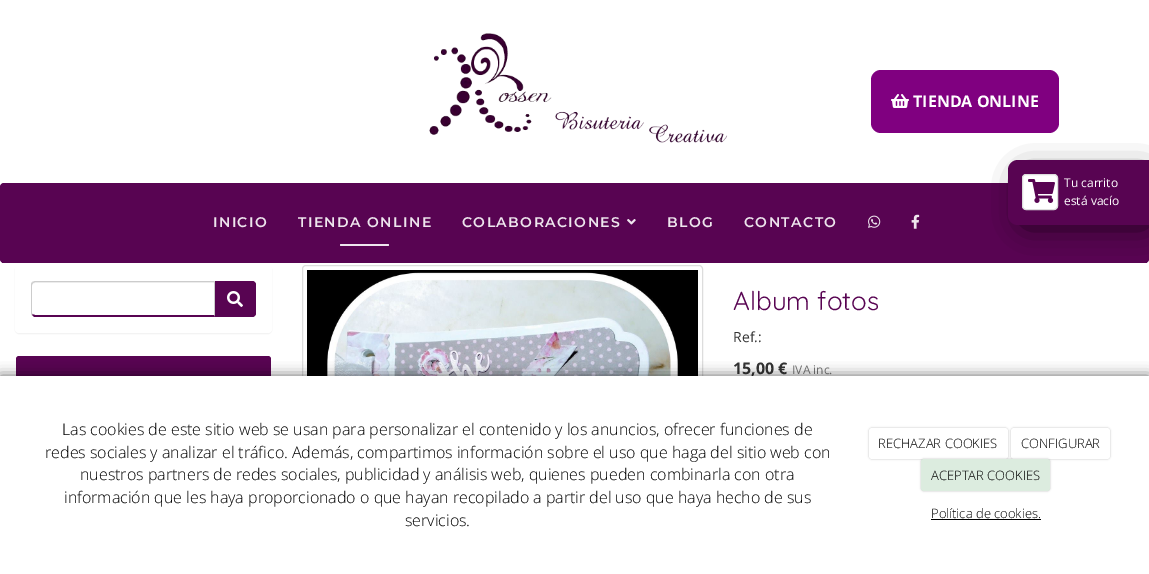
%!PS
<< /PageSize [1149 574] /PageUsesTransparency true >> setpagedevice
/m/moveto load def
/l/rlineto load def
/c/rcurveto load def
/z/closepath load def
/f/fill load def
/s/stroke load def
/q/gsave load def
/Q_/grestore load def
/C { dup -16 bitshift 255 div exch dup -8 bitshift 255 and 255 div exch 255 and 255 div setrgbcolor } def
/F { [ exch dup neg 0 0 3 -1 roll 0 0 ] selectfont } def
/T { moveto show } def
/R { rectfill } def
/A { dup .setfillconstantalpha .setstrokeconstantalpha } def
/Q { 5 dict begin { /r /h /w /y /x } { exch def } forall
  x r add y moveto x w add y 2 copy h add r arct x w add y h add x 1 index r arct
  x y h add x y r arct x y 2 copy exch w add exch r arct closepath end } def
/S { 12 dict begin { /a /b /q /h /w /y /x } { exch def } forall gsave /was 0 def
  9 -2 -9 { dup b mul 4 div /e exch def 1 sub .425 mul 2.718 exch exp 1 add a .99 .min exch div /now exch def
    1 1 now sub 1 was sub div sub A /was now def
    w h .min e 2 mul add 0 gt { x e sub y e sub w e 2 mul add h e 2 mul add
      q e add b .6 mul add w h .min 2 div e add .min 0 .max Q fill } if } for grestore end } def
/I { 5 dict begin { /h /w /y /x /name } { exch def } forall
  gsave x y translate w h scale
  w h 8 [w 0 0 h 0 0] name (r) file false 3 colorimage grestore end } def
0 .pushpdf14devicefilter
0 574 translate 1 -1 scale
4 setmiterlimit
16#FFFFFF C
0 0 1149 574 R
(1.rgb) 429 33 299 110 I
16#800080 C
871 70 188 63 10 Q f
(2.rgb) 891 94 18 14 I
/OpenSans-Bold 16 F
16#FFFFFF C
(TIENDA ONLINE) 913 107 T
16#580452 C
0 183 1149 80 4 Q f
2 262 1145 1 R
16#000000 C
1026 178 119 43 0 15.5 1 S
16#580452 C
1018 160 m 131 0 l 0 65 l -131 0 l -5.5 0 -10 -4.5 -10 -10 c 0 -45 l 0 -5.5 4.5 -10 10 -10 c z f
16#FFFFFF C
1022.5 174.5 35 35 3.5 Q q f Q_
16#DDDDDD C
s
(3.rgb) 1028 179 27 24 I
/OpenSans-Regular 12 F
16#FFFFFF C
(Tu carrito) 1064 187 T
(está vacío) 1064 205 T
/Montserrat-SemiBold 14 F
16#EEE6EE C
213 227 m 1.4 0 (INICIO) ashow
298 227 m 1.4 0 (TIENDA ONLINE) ashow
340 244 49 2 1 Q f
462 227 m 1.4 0 (COLABORACIONES) ashow
(4.rgb) 627 219 9 6 I
667 227 m 1.4 0 (BLOG) ashow
744 227 m 1.4 0 (CONTACTO) ashow
(5.rgb) 868 215 13 13 I
(6.rgb) 911 214 9 15 I
16#000000 C
15 266 257 68 4 .5 .05 S
16#FFFFFF C
15 265 257 68 4 Q f
16#ECECEC C
35 283 m 179 0 l 0 -1 l -180 0 l -2 1 -2 2 -2 4 c 0 -2 1 -3 3 -3 c z f
16#CCCCCC C
35 281 m -3 1 l 1 1 l 2 -1 l 179 0 l 1 -1 l z f
215 281 m -1 1 l 0 33 l 1 2 l z f
16#580452 C
215 317 m -1 -2 l -179 0 l -3 -1 l 0 1 l 1 1 2 2 3 2 c z f
16#CCCCCC C
31 285 m 0 28 l 0 1 .5 1.5 1 2.5 c .5 -1.5 l -.5 -1 l 0 -28.5 l 1 -1.5 l -1 -1 l -.5 1 -1 2 -1 3 c z f
16#580452 C
215 281 m 37 0 l 2 0 4 2 4 4 c 0 28 l 0 2 -2 4 -4 4 c -37 0 l z f
215 281 m 37 0 l 2 0 4 2 4 4 c 0 28 l 0 2 -2 4 -4 4 c -37 0 l z 215 282 m 37 0 l 2 0 3 1 3 3 c 0 28 l 0 2 -1 3 -3 3 c -37 0 l z eofill
(7.rgb) 227 291 16 16 I
19 356 m 249 0 l 1.5 0 3 1.5 3 3 c 0 41 l -255 0 l 0 -41 l 0 -1.5 1.5 -3 3 -3 c z f
16#DDDDDD C
302.5 265.5 400 302 3.5 Q s
(8.rgb) 307 270 391 106 I
/Quicksand-Light 26 F
16#580452 C
(Album fotos) 733 310 T
/OpenSans-Regular 14 F
16#333333 C
(Ref.:) 733 342 T
/OpenSans-Bold 16 F
(15,00 €) 733 374 T
/OpenSans-Regular 12 F
16#777777 C
(IVA inc.) 792 374 T
16#000000 C
0 376 1149 198 0 6.5 .6 S
16#FFFFFF C
0 376 1149 198 R
/OpenSans-Light 16 F
16#000000 C
(Las cookies de este sitio web se usan para personalizar el contenido y los anuncios, ofrecer funciones de) 62 435 T
(redes sociales y analizar el tráfico. Además, compartimos información sobre el uso que haga del sitio web con) 45 458 T
(nuestros partners de redes sociales, publicidad y análisis web, quienes pueden combinarla con otra) 80 480 T
(información que les haya proporcionado o que hayan recopilado a partir del uso que haya hecho de sus) 64 503 T
(servicios.) 405 526 T
869 428 139 31 3 1 .25 S
16#FFFFFF C
869 428 139 31 3 Q f
/OpenSans-Light 13 F
16#000000 C
(RECHAZAR COOKIES) 878 448 T
1011 428 99 31 3 1 .25 S
16#FFFFFF C
1011 428 99 31 3 Q f
16#000000 C
(CONFIGURAR) 1021 448 T
921 459 129 32 3 1 .25 S
16#DCECDF C
921 459 129 32 3 Q f
16#000000 C
(ACEPTAR COOKIES) 931 480 T
(Política de cookies.) 931 518 T
931 519 110 1 R
.poppdf14devicefilter showpage
